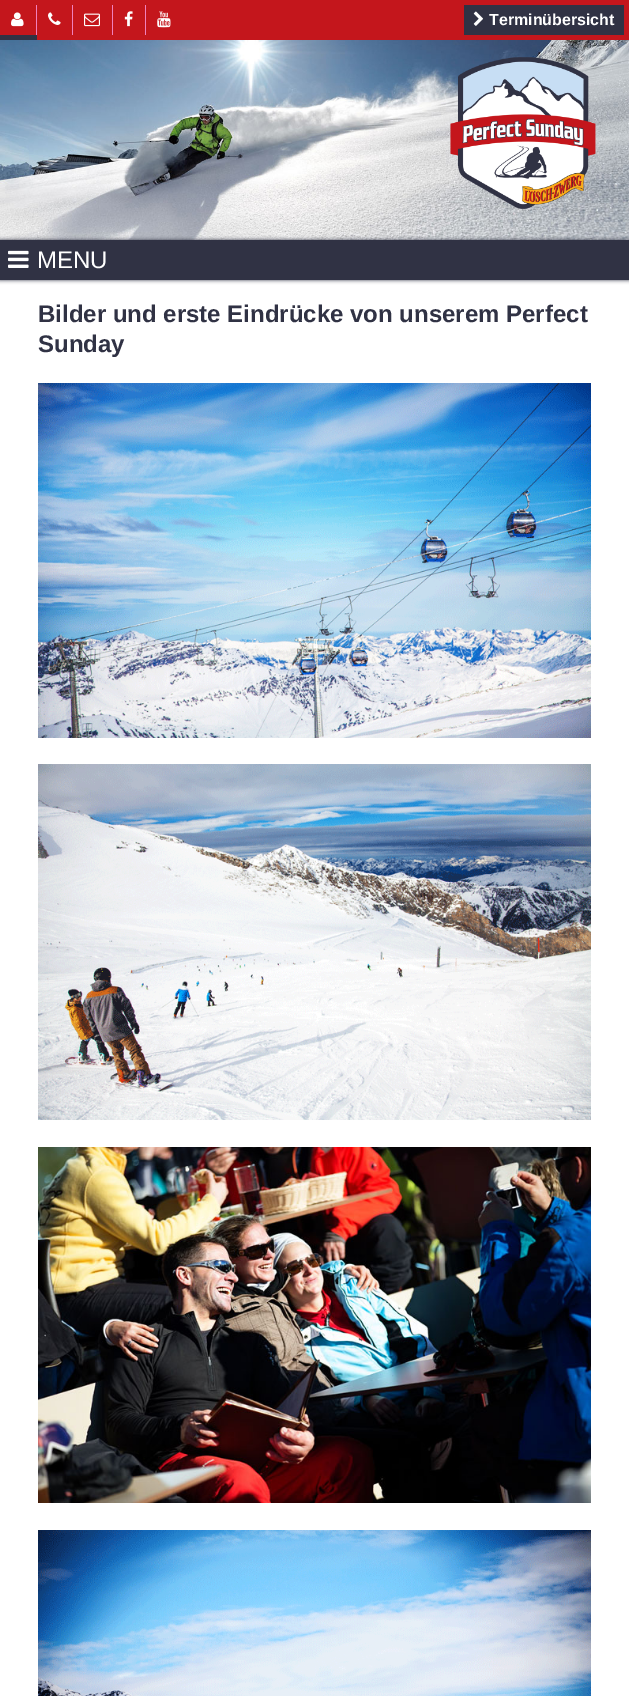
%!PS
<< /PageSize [629 1696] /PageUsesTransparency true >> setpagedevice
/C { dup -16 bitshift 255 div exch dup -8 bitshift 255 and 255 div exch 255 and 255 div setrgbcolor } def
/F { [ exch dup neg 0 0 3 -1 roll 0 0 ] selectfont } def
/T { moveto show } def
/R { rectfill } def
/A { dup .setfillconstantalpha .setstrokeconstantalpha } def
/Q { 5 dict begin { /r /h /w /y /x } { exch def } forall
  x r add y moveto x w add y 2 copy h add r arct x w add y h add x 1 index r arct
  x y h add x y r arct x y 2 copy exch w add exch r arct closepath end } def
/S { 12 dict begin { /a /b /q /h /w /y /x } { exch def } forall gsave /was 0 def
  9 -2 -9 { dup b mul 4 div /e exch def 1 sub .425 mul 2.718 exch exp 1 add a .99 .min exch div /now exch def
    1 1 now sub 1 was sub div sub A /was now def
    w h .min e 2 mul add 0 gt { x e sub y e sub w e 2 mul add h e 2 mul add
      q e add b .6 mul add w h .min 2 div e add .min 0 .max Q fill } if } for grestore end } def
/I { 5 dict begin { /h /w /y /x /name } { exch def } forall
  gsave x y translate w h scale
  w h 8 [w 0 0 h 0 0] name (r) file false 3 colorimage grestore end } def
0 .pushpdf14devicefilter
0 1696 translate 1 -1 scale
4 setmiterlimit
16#FFFFFF C
0 0 629 1696 R
16#C4161C C
0 0 629 40 R
16#303244 C
0 35 37 5 R
16#F180BD C
36 5 1 30 R
(1.rgb) 11 12 13 15 I
72 5 1 30 R
(2.rgb) 48 12 13 13 I
112 5 1 30 R
(3.rgb) 84 13 16 14 I
145 5 1 30 R
(4.rgb) 124 11 9 16 I
(5.rgb) 157 11 14 17 I
16#303244 C
464 5 160 30 R
(6.rgb) 473 11 10 15 I
/Arimo-Bold 16 F
16#FFFFFF C
(Terminübersicht) 489 25 T
(7.rgb) 0 40 629 200 I
(8.rgb) 450 57 146 152 I
16#303244 C
0 240 629 40 0 2 1 S
0 240 629 40 R
(9.rgb) 8 250 21 18 I
/Arimo-Regular 24 F
16#FFFFFF C
(MENU) 37 268 T
/Arimo-Bold 24 F
16#303244 C
(Bilder und erste Eindrücke von unserem Perfect) 38 322 T
(Sunday) 38 352 T
(10.rgb) 38 383 553 355 I
(11.rgb) 38 764 553 356 I
(12.rgb) 38 1147 553 356 I
(13.rgb) 38 1530 553 166 I
.poppdf14devicefilter showpage
